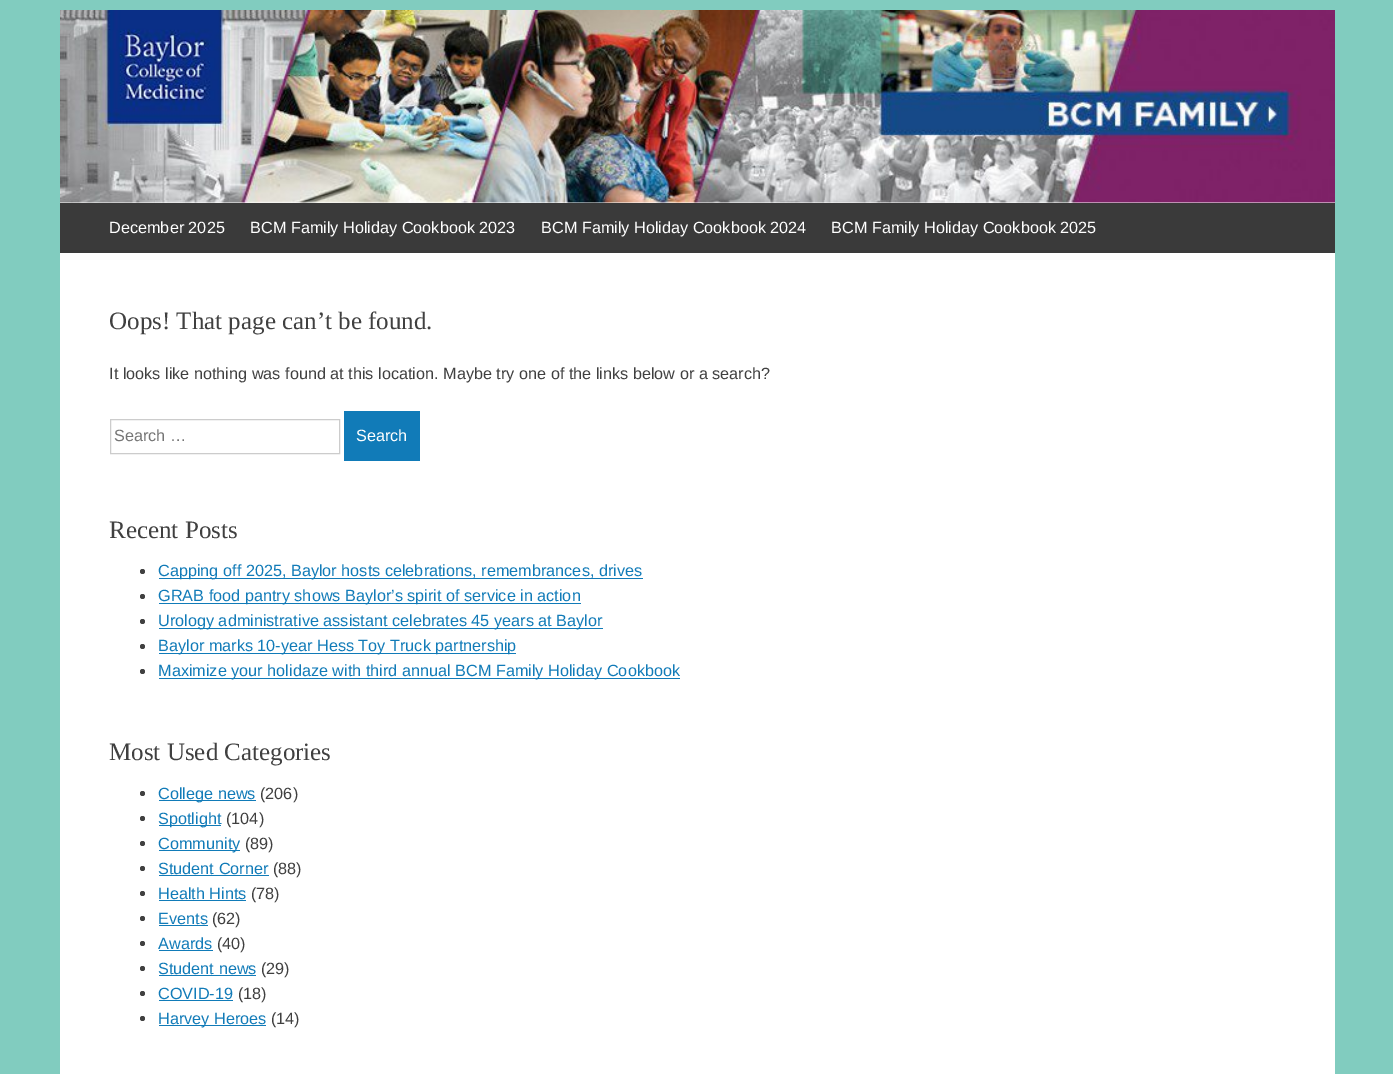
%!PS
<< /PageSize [1393 1074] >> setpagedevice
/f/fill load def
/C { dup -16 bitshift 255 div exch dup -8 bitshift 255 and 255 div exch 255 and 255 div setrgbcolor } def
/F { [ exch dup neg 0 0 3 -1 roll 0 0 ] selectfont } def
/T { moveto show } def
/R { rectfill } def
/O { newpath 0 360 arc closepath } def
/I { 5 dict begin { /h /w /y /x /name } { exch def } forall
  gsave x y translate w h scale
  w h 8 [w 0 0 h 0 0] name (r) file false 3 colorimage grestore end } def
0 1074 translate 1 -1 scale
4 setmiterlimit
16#81CCBF C
0 0 1393 1074 R
16#FFFFFF C
60 202 1275 872 R
(1.rgb) 60 10 1275 193 I
16#3A3A3A C
60 203 1275 50 R
/LiberationSans-Regular 16.25 F
16#FFFFFF C
(December 2025) 109 233 T
(BCM Family Holiday Cookbook 2023) 250 233 T
(BCM Family Holiday Cookbook 2024) 541 233 T
(BCM Family Holiday Cookbook 2025) 831 233 T
/LiberationSerif-Regular 25 F
16#404040 C
(Oops! That page can’t be found.) 109 329 T
/LiberationSans-Regular 16.25 F
(It looks like nothing was found at this location. Maybe try one of the links below or a search?) 109 379 T
16#CCCCCC C
110.5 419.5 229 34 rectstroke
16#757575 C
(Search …) 114 441 T
16#117BB8 C
344 411 76 50 R
16#FFFFFF C
(Search) 356 441 T
/LiberationSerif-Regular 25 F
16#404040 C
(Recent Posts) 109 538 T
142.5 571.5 2.5 O f
16#117BB8 C
159 578 484 1 R
/LiberationSans-Regular 16.25 F
(Capping off 2025, Baylor hosts celebrations, remembrances, drives) 158 576 T
16#404040 C
142.5 596.5 2.5 O f
16#117BB8 C
159 603 422 1 R
(GRAB food pantry shows Baylor’s spirit of service in action) 158 601 T
16#404040 C
142.5 621.5 2.5 O f
16#117BB8 C
159 628 444 1 R
(Urology administrative assistant celebrates 45 years at Baylor) 158 626 T
16#404040 C
142.5 646.5 2.5 O f
16#117BB8 C
159 653 357 1 R
(Baylor marks 10-year Hess Toy Truck partnership) 158 651 T
16#404040 C
142.5 671.5 2.5 O f
16#117BB8 C
159 678 521 1 R
(Maximize your holidaze with third annual BCM Family Holiday Cookbook) 158 676 T
/LiberationSerif-Regular 25 F
16#404040 C
(Most Used Categories) 109 760 T
142.5 793.5 2.5 O f
16#117BB8 C
159 800 97 1 R
/LiberationSans-Regular 16.25 F
(College news) 158 799 T
16#404040 C
(\(206\)) 260 799 T
142.5 818.5 2.5 O f
16#117BB8 C
159 825 62 1 R
(Spotlight) 158 824 T
16#404040 C
(\(104\)) 226 824 T
142.5 843.5 2.5 O f
16#117BB8 C
159 850 81 1 R
(Community) 158 849 T
16#404040 C
(\(89\)) 245 849 T
142.5 868.5 2.5 O f
16#117BB8 C
(Student Corner) 158 874 T
159 875 110 1 R
16#404040 C
(\(88\)) 273 874 T
142.5 893.5 2.5 O f
16#117BB8 C
(Health Hints) 158 899 T
159 900 87 1 R
16#404040 C
(\(78\)) 251 899 T
142.5 918.5 2.5 O f
16#117BB8 C
(Events) 158 924 T
159 925 49 1 R
16#404040 C
(\(62\)) 212 924 T
142.5 943.5 2.5 O f
16#117BB8 C
(Awards) 158 949 T
159 950 54 1 R
16#404040 C
(\(40\)) 217 949 T
142.5 968.5 2.5 O f
16#117BB8 C
(Student news) 158 974 T
159 975 97 1 R
16#404040 C
(\(29\)) 261 974 T
142.5 993.5 2.5 O f
16#117BB8 C
(COVID-19) 158 999 T
159 1000 74 1 R
16#404040 C
(\(18\)) 238 999 T
142.5 1018.5 2.5 O f
16#117BB8 C
159 1025 107 1 R
(Harvey Heroes) 158 1024 T
16#404040 C
(\(14\)) 271 1024 T
showpage
